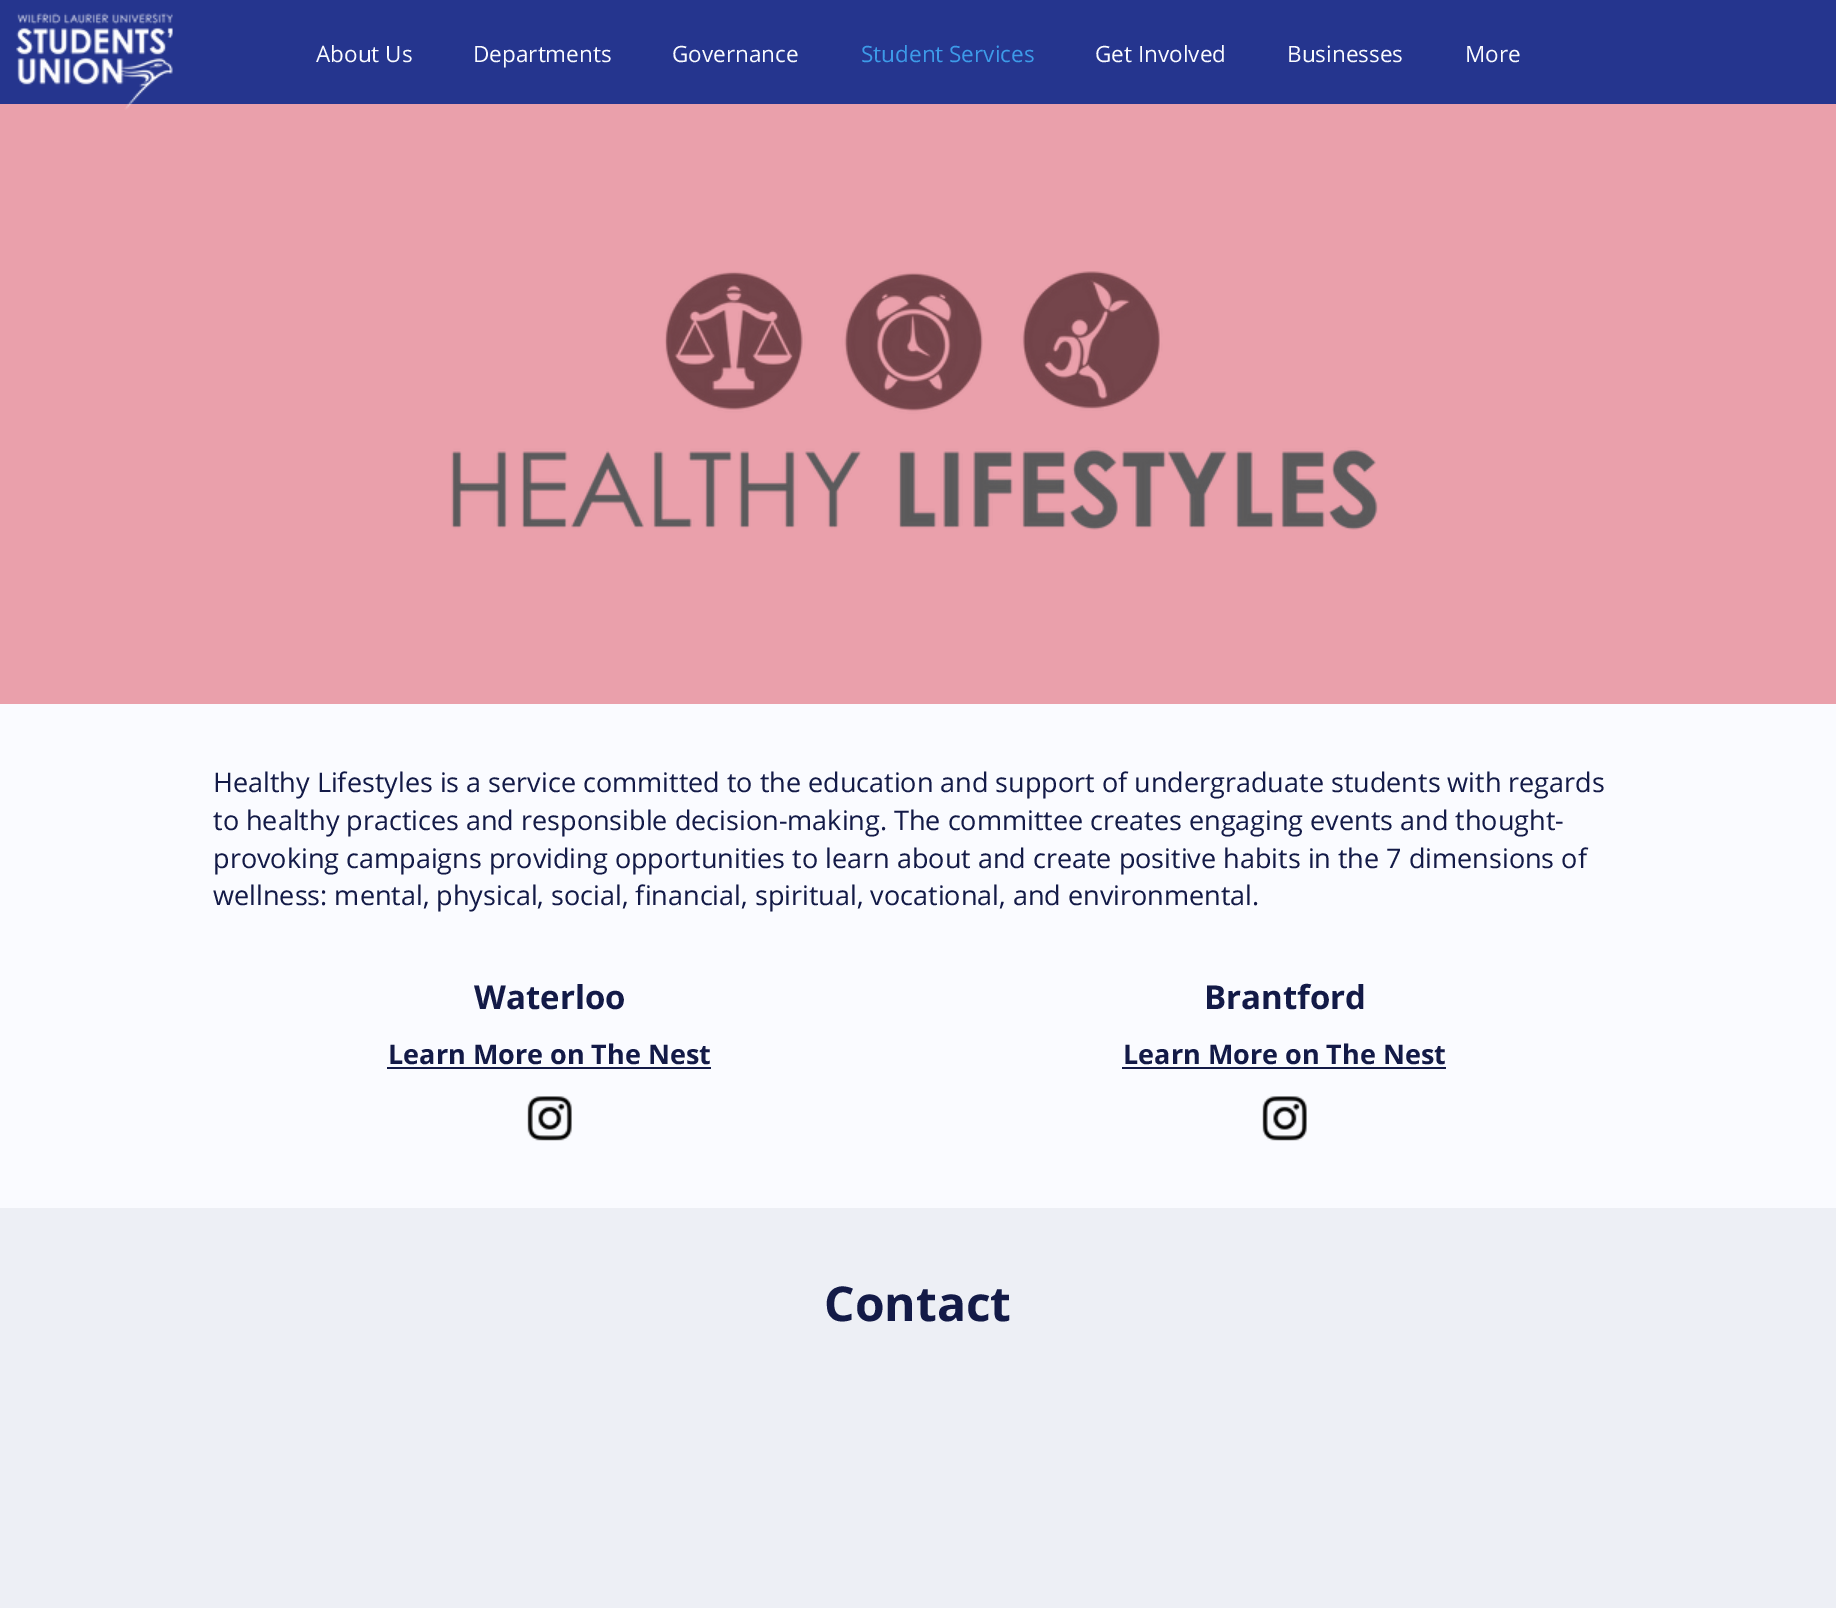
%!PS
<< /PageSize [1836 1608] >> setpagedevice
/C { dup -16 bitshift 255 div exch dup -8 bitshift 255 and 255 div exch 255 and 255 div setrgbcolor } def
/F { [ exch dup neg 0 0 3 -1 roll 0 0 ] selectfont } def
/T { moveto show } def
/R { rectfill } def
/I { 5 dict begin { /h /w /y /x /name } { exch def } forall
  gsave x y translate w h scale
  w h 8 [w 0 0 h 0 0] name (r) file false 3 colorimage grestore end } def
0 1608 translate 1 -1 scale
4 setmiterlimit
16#FAFBFF C
0 0 1836 1608 R
16#25358E C
0 0 1836 104 R
16#EAA0AB C
0 104 1836 600 R
(1.rgb) 16 13 157 97 I
/OpenSans-Regular 22.5 F
16#FAFBFF C
(About Us) 316 62 T
(Departments) 473 62 T
(Governance) 672 62 T
16#3D9BE9 C
(Student Services) 861 62 T
16#FAFBFF C
(Get Involved) 1095 62 T
(Businesses) 1287 62 T
(More) 1465 62 T
(2.rgb) 451 271 927 259 I
/OpenSans-Regular 27 F
16#131A47 C
(Healthy Lifestyles is a service committed to the education and support of undergraduate students with regards) 213 792 T
(to healthy practices and responsible decision-making. The committee creates engaging events and thought-) 213 830 T
(provoking campaigns providing opportunities to learn about and create positive habits in the 7 dimensions of) 213 868 T
(wellness: mental, physical, social, financial, spiritual, vocational, and environmental.) 213 905 T
/OpenSans-Bold 33 F
(Waterloo) 474 1009 T
/OpenSans-Bold 27 F
(Learn More on The Nest) 388 1064 T
387 1067 324 2 R
(3.rgb) 527 1096 45 45 I
/OpenSans-Bold 33 F
(Brantford) 1204 1009 T
/OpenSans-Bold 27 F
(Learn More on The Nest) 1123 1064 T
1122 1067 324 2 R
(4.rgb) 1262 1096 45 45 I
16#EDEFF5 C
0 1208 1836 400 R
/OpenSans-Bold 48 F
16#131A47 C
(Contact) 824 1321 T
showpage
